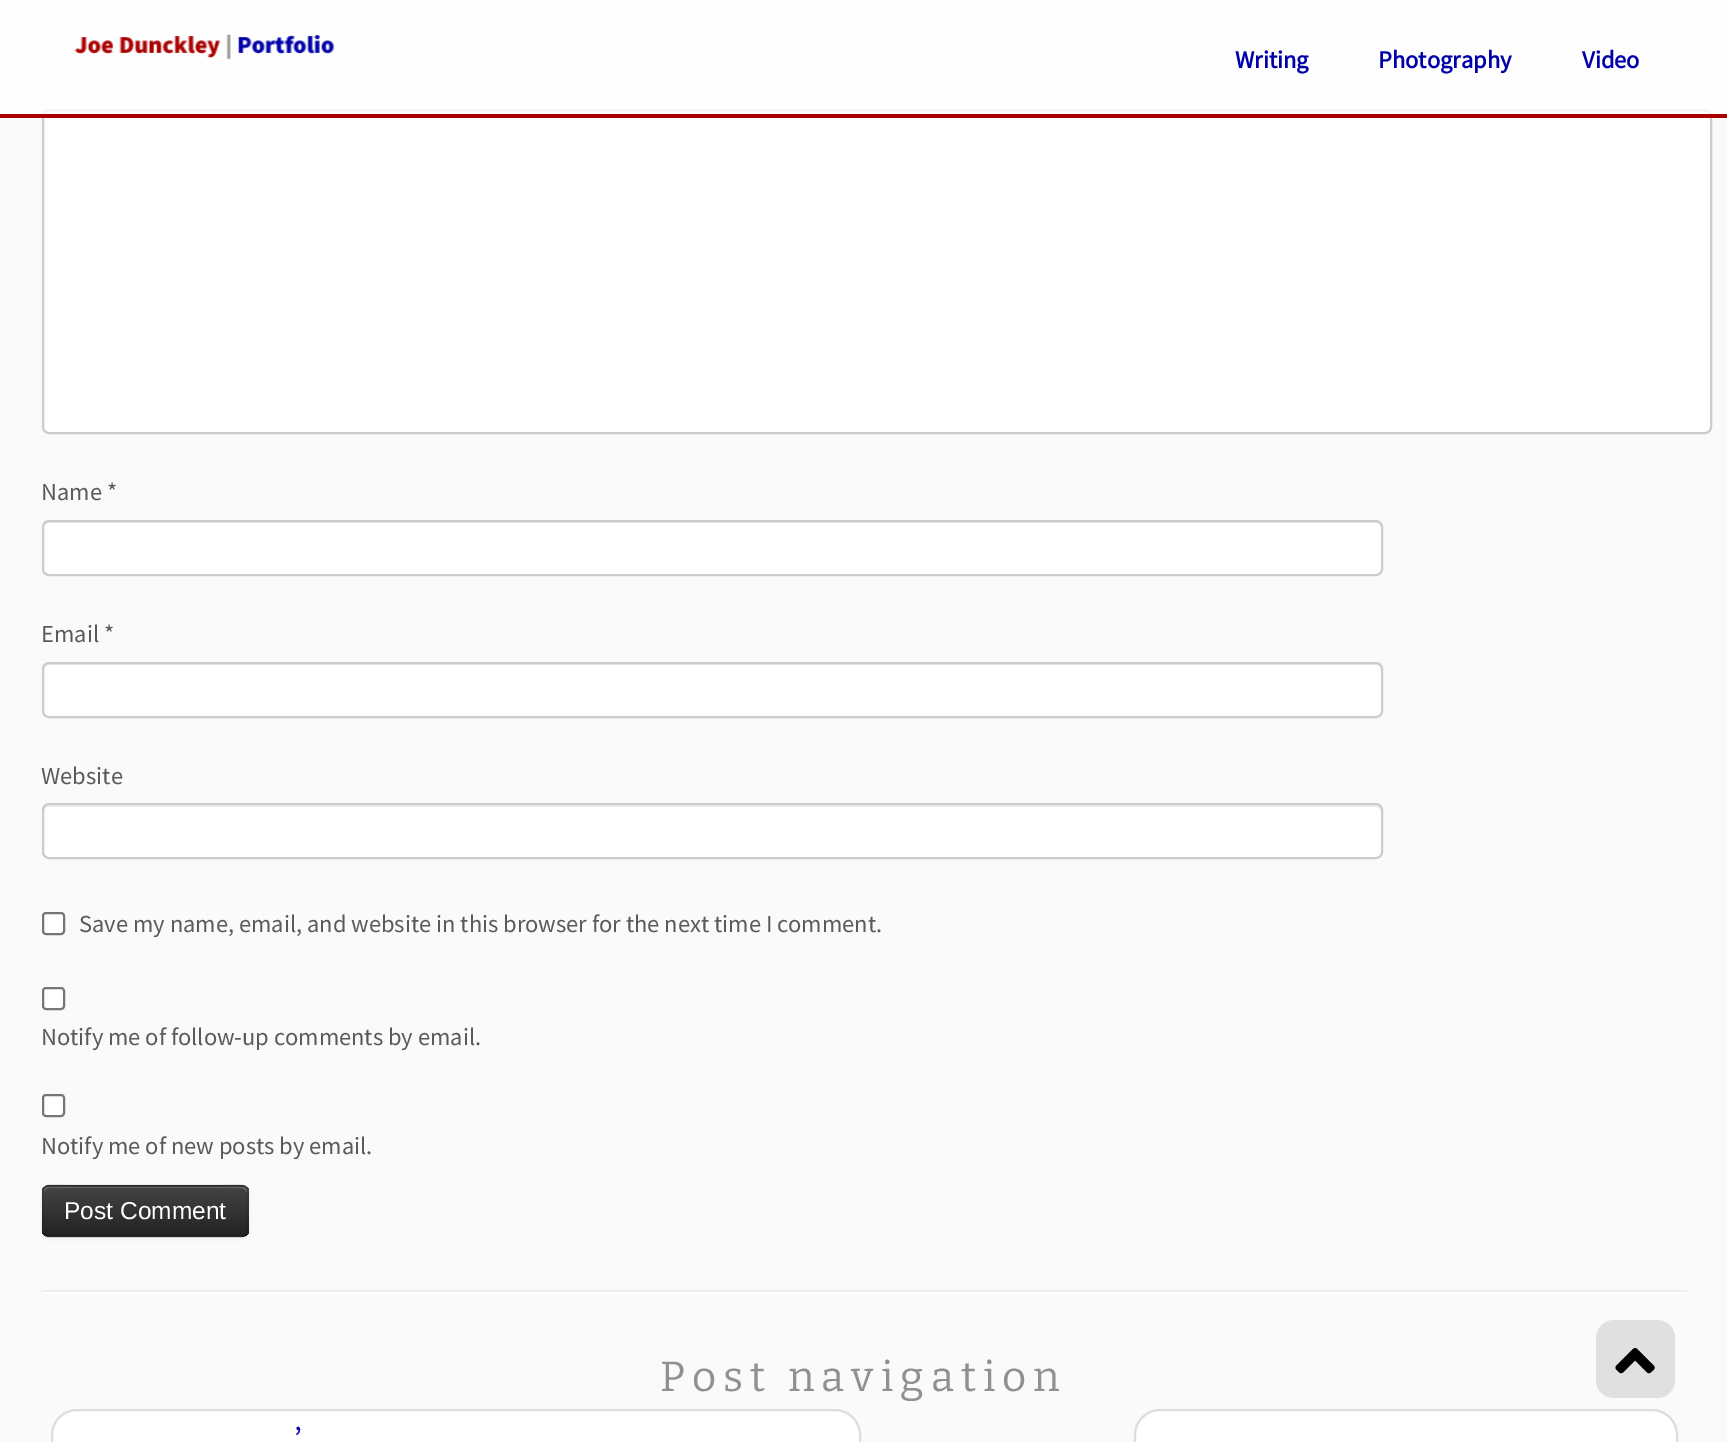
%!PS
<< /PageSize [1727 1442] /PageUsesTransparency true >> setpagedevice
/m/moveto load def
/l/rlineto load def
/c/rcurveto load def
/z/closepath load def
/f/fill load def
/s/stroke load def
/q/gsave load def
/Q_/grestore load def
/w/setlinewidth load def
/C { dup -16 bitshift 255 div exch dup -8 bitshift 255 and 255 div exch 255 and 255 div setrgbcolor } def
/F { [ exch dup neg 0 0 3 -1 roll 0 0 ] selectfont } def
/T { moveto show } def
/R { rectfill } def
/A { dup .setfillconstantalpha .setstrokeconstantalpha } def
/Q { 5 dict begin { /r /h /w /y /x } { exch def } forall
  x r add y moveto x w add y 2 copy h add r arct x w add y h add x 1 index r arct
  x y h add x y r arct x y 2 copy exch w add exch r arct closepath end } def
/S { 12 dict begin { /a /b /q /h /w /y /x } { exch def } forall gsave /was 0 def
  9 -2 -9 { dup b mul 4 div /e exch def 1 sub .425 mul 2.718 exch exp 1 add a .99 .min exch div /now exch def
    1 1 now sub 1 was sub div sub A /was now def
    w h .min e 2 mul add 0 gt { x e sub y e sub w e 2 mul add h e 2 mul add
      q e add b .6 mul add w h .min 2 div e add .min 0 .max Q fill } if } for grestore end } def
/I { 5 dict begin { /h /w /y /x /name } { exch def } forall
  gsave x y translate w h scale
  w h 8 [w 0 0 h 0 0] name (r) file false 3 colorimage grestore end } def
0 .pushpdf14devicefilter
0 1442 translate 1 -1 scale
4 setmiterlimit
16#FAFAFA C
0 0 1727 1442 R
16#FFFFFF C
42 109 1670 325 7 Q f
16#ECECEC C
49 112 m 1655 0 l 3 0 6 2 6 5 c 0 -3 -1 -7 -5 -7 c -1656 0 l -4 0 -5 4 -5 7 c 0 -3 2 -5 5 -5 c z f
16#CCCCCC C
2 w
43 110 1668 323 6 Q s
0.8 A
16#FFFFFF C
0 0 1727 114 R
1 A
16#AA0000 C
0 114 1727 4 R
(1.rgb) 74 34 261 26 I
/SourceSansPro-Bold 24.5 F
16#0000AA C
(Writing) 1235 68 T
(Photography) 1378 68 T
(Video) 1582 68 T
/SourceSansPro-Regular 24.5 F
16#5A5A5A C
(Name *) 41 500 T
16#FFFFFF C
42 520 1341 56 7 Q f
16#ECECEC C
49 523 m 1327 0 l 2 0 5 3 5 5 c 0 -3 -2 -6 -5 -6 c -1327 0 l -3 0 -5 3 -5 6 c 0 -2 2 -5 5 -5 c z f
16#CCCCCC C
43 521 1339 54 6 Q s
16#5A5A5A C
(Email *) 41 642 T
16#FFFFFF C
42 662 1341 56 7 Q f
16#ECECEC C
49 665 m 1327 0 l 2 0 5 2 5 5 c 0 -3 -1 -7 -5 -7 c -1327 0 l -4 0 -5 4 -5 7 c 0 -3 2 -5 5 -5 c z f
16#CCCCCC C
43 663 1339 54 6 Q s
16#5A5A5A C
(Website) 41 784 T
16#FFFFFF C
42 803 1341 56 7 Q f
16#ECECEC C
49 807 m 1327 0 l 2 0 5 2 5 5 c 0 -3 -1 -7 -5 -7 c -1327 0 l -4 0 -5 4 -5 7 c 0 -3 2 -5 5 -5 c z f
16#CCCCCC C
43 804 1339 54 6 Q s
16#FFFFFF C
43 913 21 21 3 Q q f Q_
16#767676 C
s
16#5A5A5A C
(Save my name, email, and website in this browser for the next time I comment.) 79 932 T
16#FFFFFF C
43 988 21 21 3 Q q f Q_
16#767676 C
s
16#5A5A5A C
(Notify me of follow-up comments by email.) 41 1045 T
16#FFFFFF C
43 1095 21 21 3 Q q f Q_
16#767676 C
s
16#5A5A5A C
(Notify me of new posts by email.) 41 1154 T
16#000000 C
42 1187 207 52 7 2 .05 S
16#363636 C
42 1185 207 52 7 Q f
q
42 1185 207 52 7 Q clip newpath
q 42 1187 m 207 0 l 0 49 l -207 0 l z clip newpath
<< /ShadingType 2 /ColorSpace /DeviceRGB /Coords [145 1187 145 1236] /Extend [true true] /Function << /FunctionType 2 /Domain [0 1] /C0 [.267 .267 .267] /C1 [.133 .133 .133] /N 1 >> >> shfill Q_
Q_
0.2 A
16#FFFFFF C
49 1188 m 193 0 l 2 0 5 3 5 6 c 0 -2 l 0 -3 -2 -5 -5 -5 c -193 0 l -3 0 -5 2 -5 5 c 0 2 l 0 -3 2 -6 5 -6 c z f
0.25 A
16#000000 C
1.8 w
246 1234.5 m -1.5 1 -3 2 -4.5 2 c -192.5 0 l -1.5 0 -3 -1 -4.5 -2 c s
0.1 A
44.5 1234.5 m -3.5 -3.5 -1.5 -13 -1.5 -17 c 0 -39.5 -6 -32 38 -32 c 128.5 0 l 44 0 38 -7.5 38 32 c 0 4 2 13.5 -1.5 17 c s
/LiberationSans-Regular 24.5 F
1 A
16#FFFFFF C
(Post Comment) 64 1219 T
16#EEEEEE C
42 1290 1645 2 R
16#FFFFFF C
42 1292 1645 2 R
/Bitter-Thin 42 F
16#909090 C
660 1391 m 7 0 (Post navigation) ashow
16#FFFFFF C
52 1410 808 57 25 Q q f Q_
16#DDDDDD C
2 w
s
/SourceSansPro-Regular 32 F
16#0000AA C
(’) 294 1449 T
16#FFFFFF C
1135 1410 542 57 25 Q q f Q_
16#DDDDDD C
s
16#E0E0E0 C
1596 1320 79 78 18 Q f
(2.rgb) 1615 1348 40 26 I
.poppdf14devicefilter showpage
